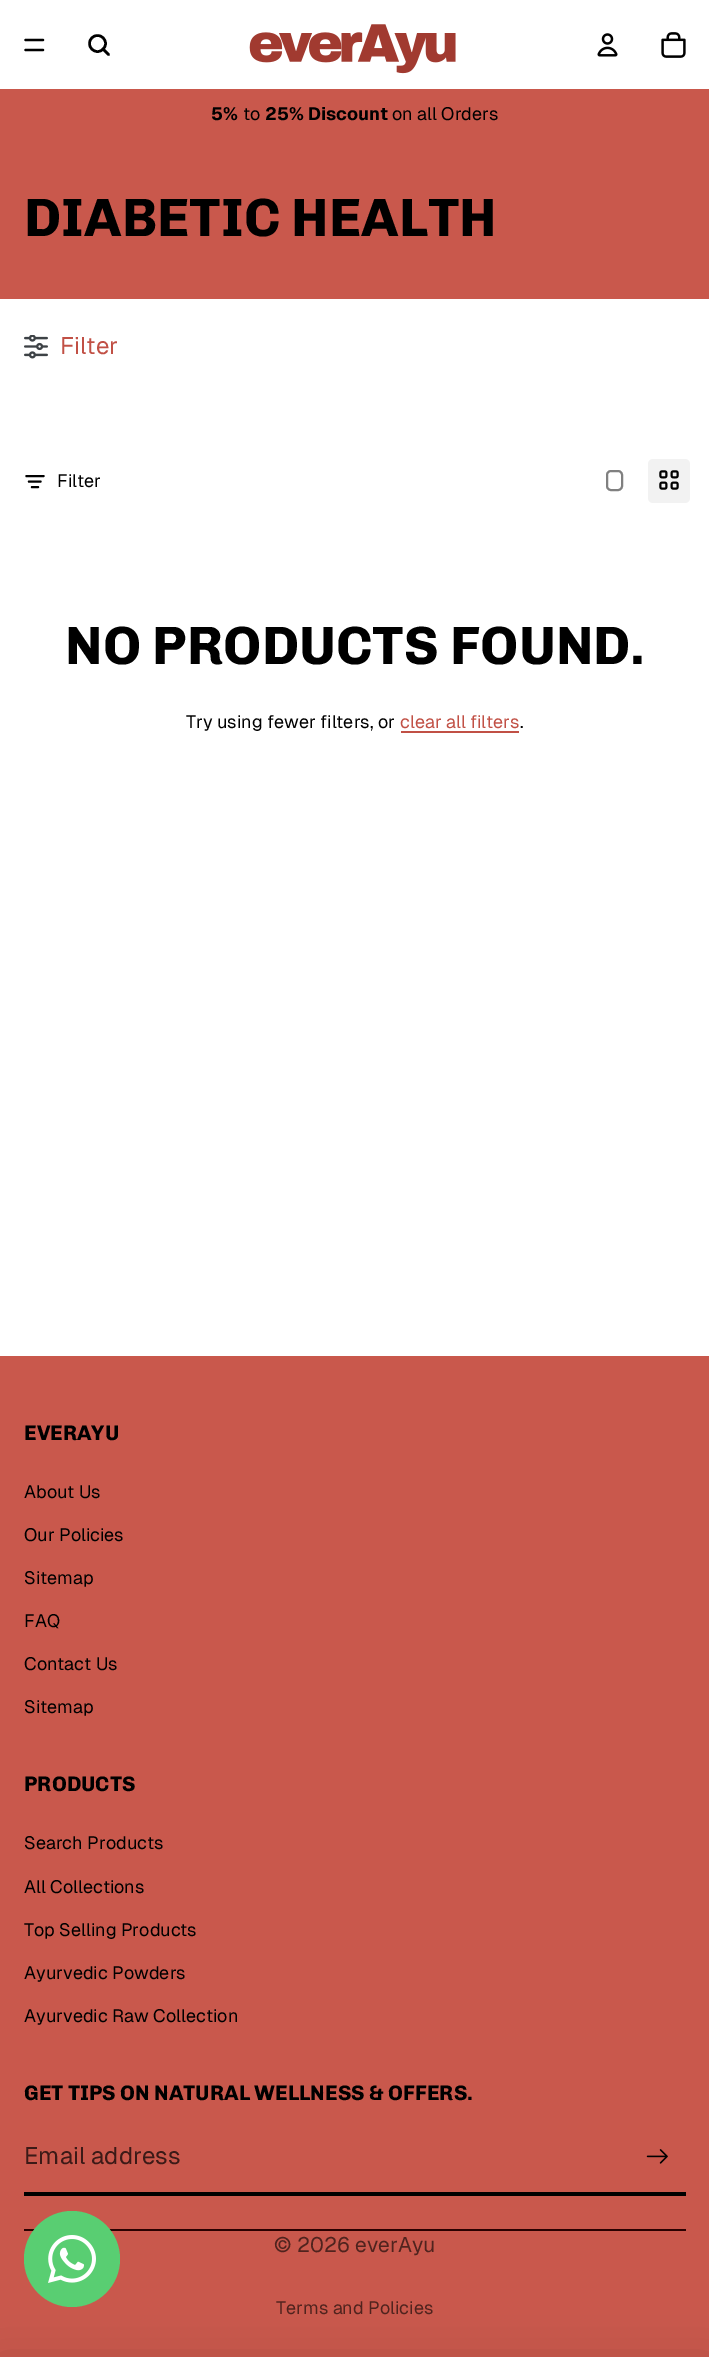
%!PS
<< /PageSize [709 2357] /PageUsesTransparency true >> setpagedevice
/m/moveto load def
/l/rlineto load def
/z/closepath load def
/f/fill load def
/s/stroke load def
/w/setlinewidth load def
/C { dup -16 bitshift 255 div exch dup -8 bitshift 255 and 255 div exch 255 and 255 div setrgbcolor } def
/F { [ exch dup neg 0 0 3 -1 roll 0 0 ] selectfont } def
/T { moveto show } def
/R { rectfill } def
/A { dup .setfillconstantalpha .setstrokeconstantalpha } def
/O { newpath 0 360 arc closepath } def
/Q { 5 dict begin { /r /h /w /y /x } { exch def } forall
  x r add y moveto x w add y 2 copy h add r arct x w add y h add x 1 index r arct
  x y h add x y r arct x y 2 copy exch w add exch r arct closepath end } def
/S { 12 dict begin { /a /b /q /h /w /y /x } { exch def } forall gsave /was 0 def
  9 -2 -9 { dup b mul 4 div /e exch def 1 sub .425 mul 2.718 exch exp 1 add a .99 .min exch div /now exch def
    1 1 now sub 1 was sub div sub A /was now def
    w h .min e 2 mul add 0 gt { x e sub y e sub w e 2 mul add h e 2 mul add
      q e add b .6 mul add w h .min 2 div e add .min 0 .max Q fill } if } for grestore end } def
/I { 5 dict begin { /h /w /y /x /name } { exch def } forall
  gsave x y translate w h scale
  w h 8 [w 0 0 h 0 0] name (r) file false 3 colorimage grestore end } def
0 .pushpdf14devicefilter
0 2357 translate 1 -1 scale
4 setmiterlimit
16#FFFFFF C
0 0 709 2357 R
16#000000 C
2.2 w
1 setlinecap
25.5 40 m 17.5 0 l 25.5 50 m 17.5 0 l s
2.5 w
0 setlinecap
97.5 43.5 8 O s
1 setlinecap
1 setlinejoin
103 49 m 5.5 5.5 l s
(1.rgb) 249 24 207 50 I
(2.rgb) 597 33 21 24 I
(3.rgb) 661 32 25 26 I
16#C9584C C
0 89 709 210 R
/Geist-Bold 18 F
16#000000 C
(5%) 211 120 T
/Geist-Regular 18 F
(to) 243 120 T
/Geist-Bold 18 F
(25% Discount) 265 120 T
/Geist-Regular 18 F
(on all Orders) 392 120 T
/Chivo-Bold 54 F
(DIABETIC HEALTH) 24 236 T
(4.rgb) 24 335 24 24 I
/Geist-Regular 24 F
16#C15045 C
(Filter) 60 354 T
16#000000 C
2.1 w
0 setlinejoin
43.5 476 m -17 0 l 40.5 481.5 m -11.5 0 l 32 487 m 6 0 l s
/Geist-Regular 18 F
(Filter) 57 487 T
16#808080 C
2 w
0 setlinecap
607 471 15 19 4 Q s
16#F2F2F2 C
648 459 42 44 5 Q f
(5.rgb) 659 470 20 20 I
/Chivo-Bold 54 F
16#000000 C
(NO PRODUCTS FOUND.) 65 664 T
/Geist-Regular 18 F
(Try using fewer filters, or) 186 728 T
16#C15045 C
(clear all filters) 400 728 T
401 731 118 2 R
16#000000 C
(.) 520 728 T
16#C9584C C
0 1356 709 1001 R
/Chivo-Bold 21 F
16#000000 C
(EVERAYU) 24 1440 T
/Geist-Regular 18 F
(About Us) 24 1498 T
(Our Policies) 24 1541 T
(Sitemap) 24 1584 T
(FAQ) 24 1627 T
(Contact Us) 24 1670 T
(Sitemap) 24 1713 T
/Chivo-Bold 21 F
(PRODUCTS) 24 1791 T
/Geist-Regular 18 F
(Search Products) 24 1849 T
(All Collections) 24 1893 T
(Top Selling Products) 24 1936 T
(Ayurvedic Powders) 24 1979 T
(Ayurvedic Raw Collection) 24 2022 T
/Chivo-Bold 21 F
(GET TIPS ON NATURAL WELLNESS & OFFERS.) 24 2100 T
24 2192 m 0 4 l 662 0 l 0 -69 l 0 65 l z f
/Geist-Regular 24 F
16#3C1A17 C
(Email address) 24 2164 T
(6.rgb) 646 2149 22 15 I
16#2B0101 C
24 2229 662 2 R
16#000000 C
0 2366 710 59 0 22.5 .15 S
16#59CE72 C
72 2259 48 O f
(7.rgb) 48 2235 48 48 I
/Geist-Regular 21 F
16#50231E C
(© 2026 everAyu) 274 2252 T
/Geist-Regular 18 F
(Terms and Policies) 276 2314 T
.poppdf14devicefilter showpage
